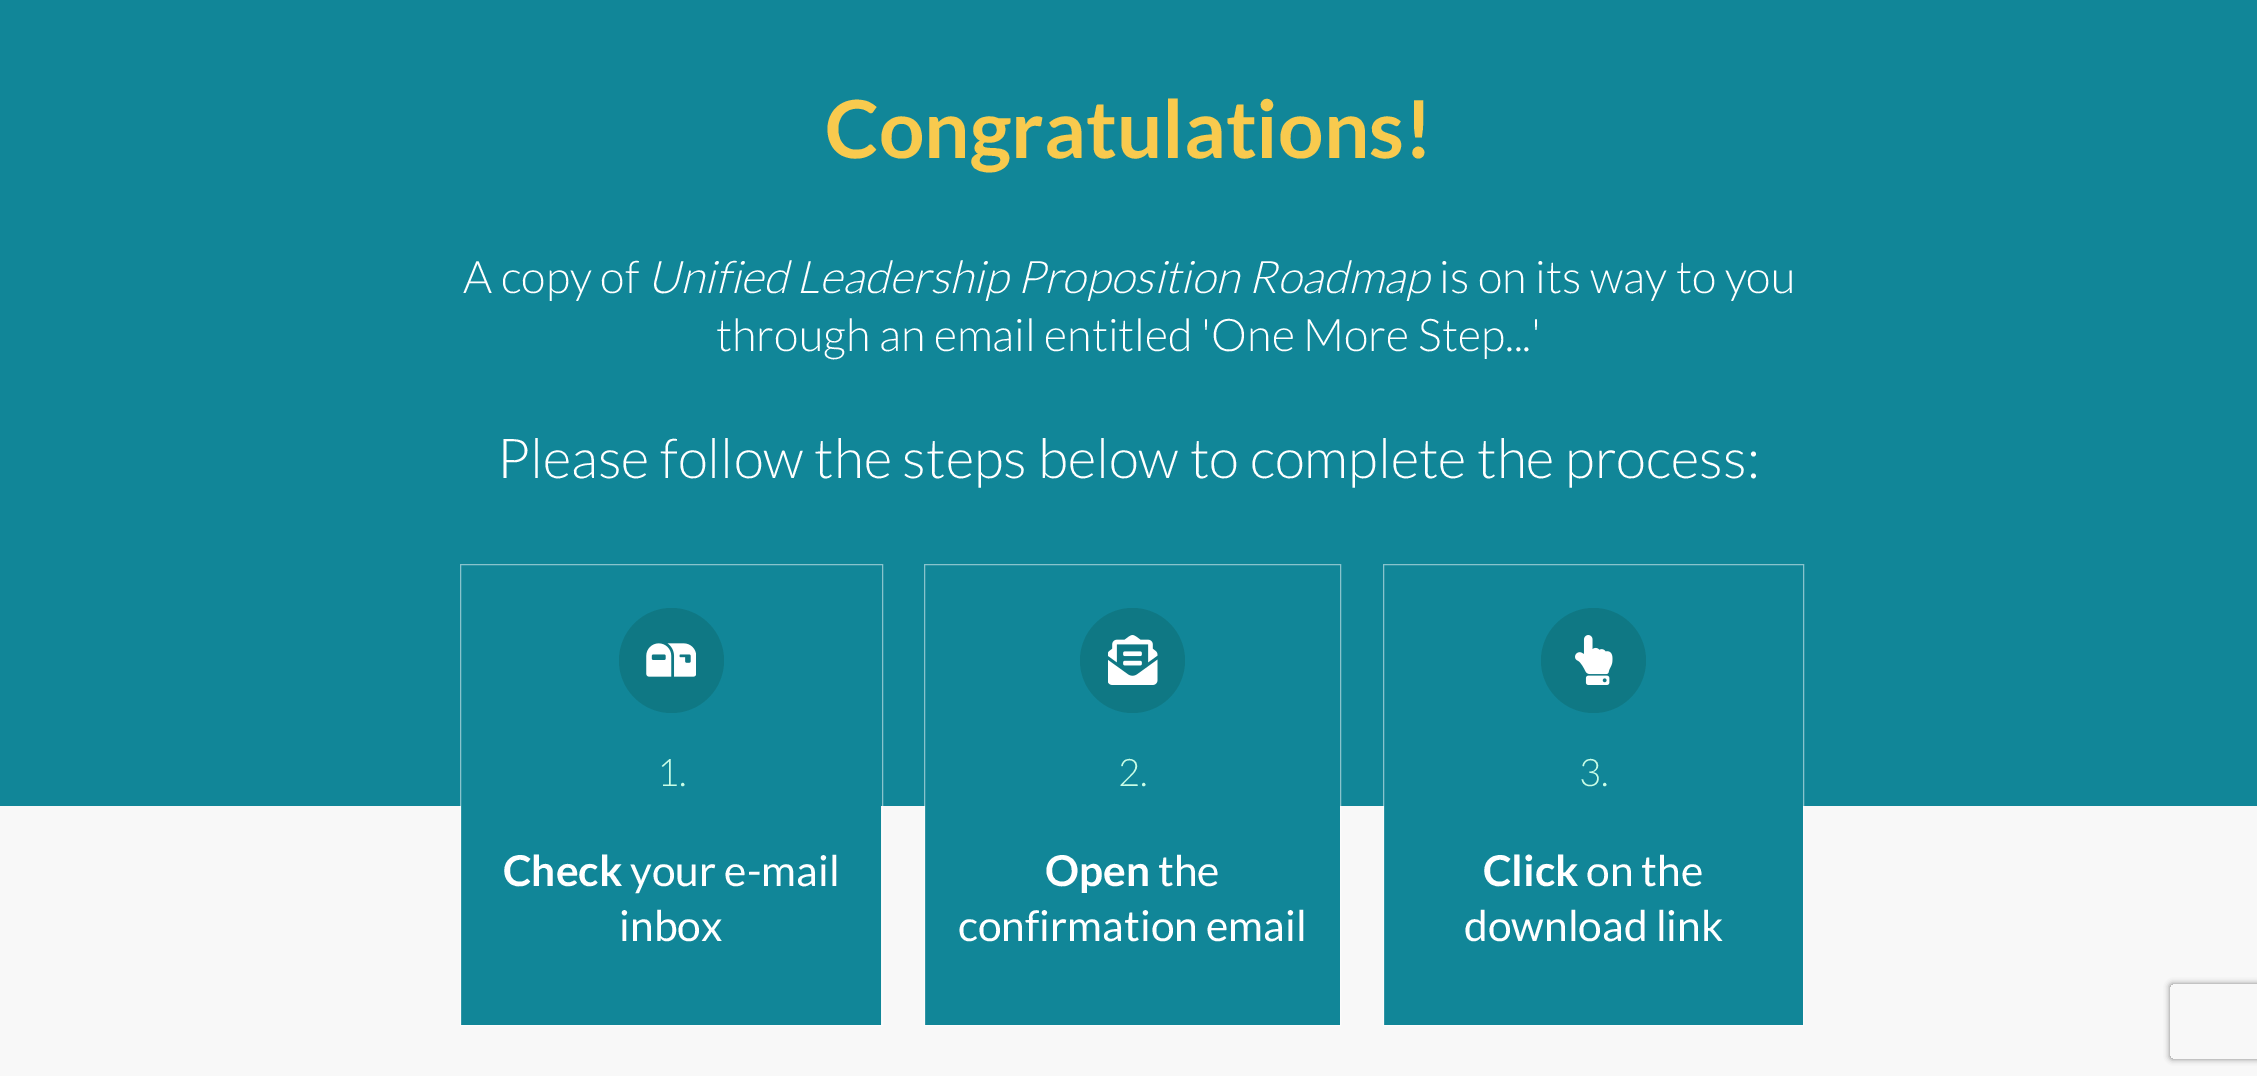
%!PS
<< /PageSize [2257 1076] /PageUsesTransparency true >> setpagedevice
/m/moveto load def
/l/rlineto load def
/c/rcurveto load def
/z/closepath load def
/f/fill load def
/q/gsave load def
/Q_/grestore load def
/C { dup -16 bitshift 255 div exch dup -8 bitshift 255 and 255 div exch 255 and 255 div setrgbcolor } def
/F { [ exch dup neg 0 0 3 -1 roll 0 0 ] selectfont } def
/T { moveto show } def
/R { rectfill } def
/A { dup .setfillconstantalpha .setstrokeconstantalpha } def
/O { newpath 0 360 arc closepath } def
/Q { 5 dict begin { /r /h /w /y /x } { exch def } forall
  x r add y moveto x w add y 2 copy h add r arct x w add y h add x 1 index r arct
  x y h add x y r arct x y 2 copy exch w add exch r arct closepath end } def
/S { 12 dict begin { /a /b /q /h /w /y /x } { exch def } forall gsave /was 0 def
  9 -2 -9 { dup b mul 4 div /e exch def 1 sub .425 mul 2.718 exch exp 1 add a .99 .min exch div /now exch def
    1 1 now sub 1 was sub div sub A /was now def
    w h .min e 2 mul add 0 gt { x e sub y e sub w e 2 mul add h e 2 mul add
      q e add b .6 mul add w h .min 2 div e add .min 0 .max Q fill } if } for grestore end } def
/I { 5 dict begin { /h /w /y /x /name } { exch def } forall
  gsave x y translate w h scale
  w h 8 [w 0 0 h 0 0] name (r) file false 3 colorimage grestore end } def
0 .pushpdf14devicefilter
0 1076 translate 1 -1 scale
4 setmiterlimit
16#118698 C
0 0 2257 1076 R
/Lato-Bold 80 F
16#F8CA4E C
(Congratulations!) 825 158 T
/Lato-Light 45 F
16#FFFFFF C
(A copy of) 463 293 T
/Lato-LightItalic 45 F
(Unified Leadership Proposition Roadmap) 647 293 T
/Lato-Light 45 F
(is on its way to you) 1439 293 T
(through an email entitled 'One More Step...') 716 351 T
/Lato-Light 55 F
(Please follow the steps below to complete the process:) 497 478 T
16#F8F8F8 C
0 806 2257 270 R
16#118698 C
461 806 420 219 R
0.5 A
16#FFFFFF C
460.5 564.5 422 461 rectstroke
1 A
16#0F7884 C
671.5 660.5 52.5 O f
(1.rgb) 646 643 50 34 I
/Lato-Light 38 F
16#C9FDE6 C
(1.) 657 786 T
/Lato-Bold 42.5 F
16#FFFFFF C
(Check) 503 886 T
/Lato-Regular 42.5 F
(your e-mail) 630 886 T
(inbox) 619 941 T
16#118698 C
925 806 415 219 R
0.5 A
16#FFFFFF C
924.5 564.5 416 461 rectstroke
1 A
16#0F7884 C
1132.5 660.5 52.5 O f
(2.rgb) 1108 635 50 50 I
/Lato-Light 38 F
16#C9FDE6 C
(2.) 1118 786 T
/Lato-Bold 42.5 F
16#FFFFFF C
(Open) 1045 886 T
/Lato-Regular 42.5 F
(the) 1158 886 T
(confirmation email) 958 941 T
16#118698 C
1384 806 419 219 R
0.5 A
16#FFFFFF C
1383.5 564.5 420 461 rectstroke
1 A
16#0F7884 C
1593.5 660.5 52.5 O f
(3.rgb) 1575 635 38 50 I
/Lato-Light 38 F
16#C9FDE6 C
(3.) 1579 786 T
/Lato-Bold 42.5 F
16#FFFFFF C
(Click) 1483 886 T
/Lato-Regular 42.5 F
(on the) 1586 886 T
(download link) 1464 941 T
q
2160 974 m 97 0 l 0 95 l -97 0 l z 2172.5 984 m 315 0 l 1.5 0 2.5 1 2.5 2.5 c 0 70 l 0 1.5 -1 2.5 -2.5 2.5 c -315 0 l -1.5 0 -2.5 -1 -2.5 -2.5 c 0 -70 l 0 -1.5 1 -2.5 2.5 -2.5 c z eoclip newpath
16#808080 C
2170 984 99 75 2.5 3 1 S
Q_
.poppdf14devicefilter showpage
